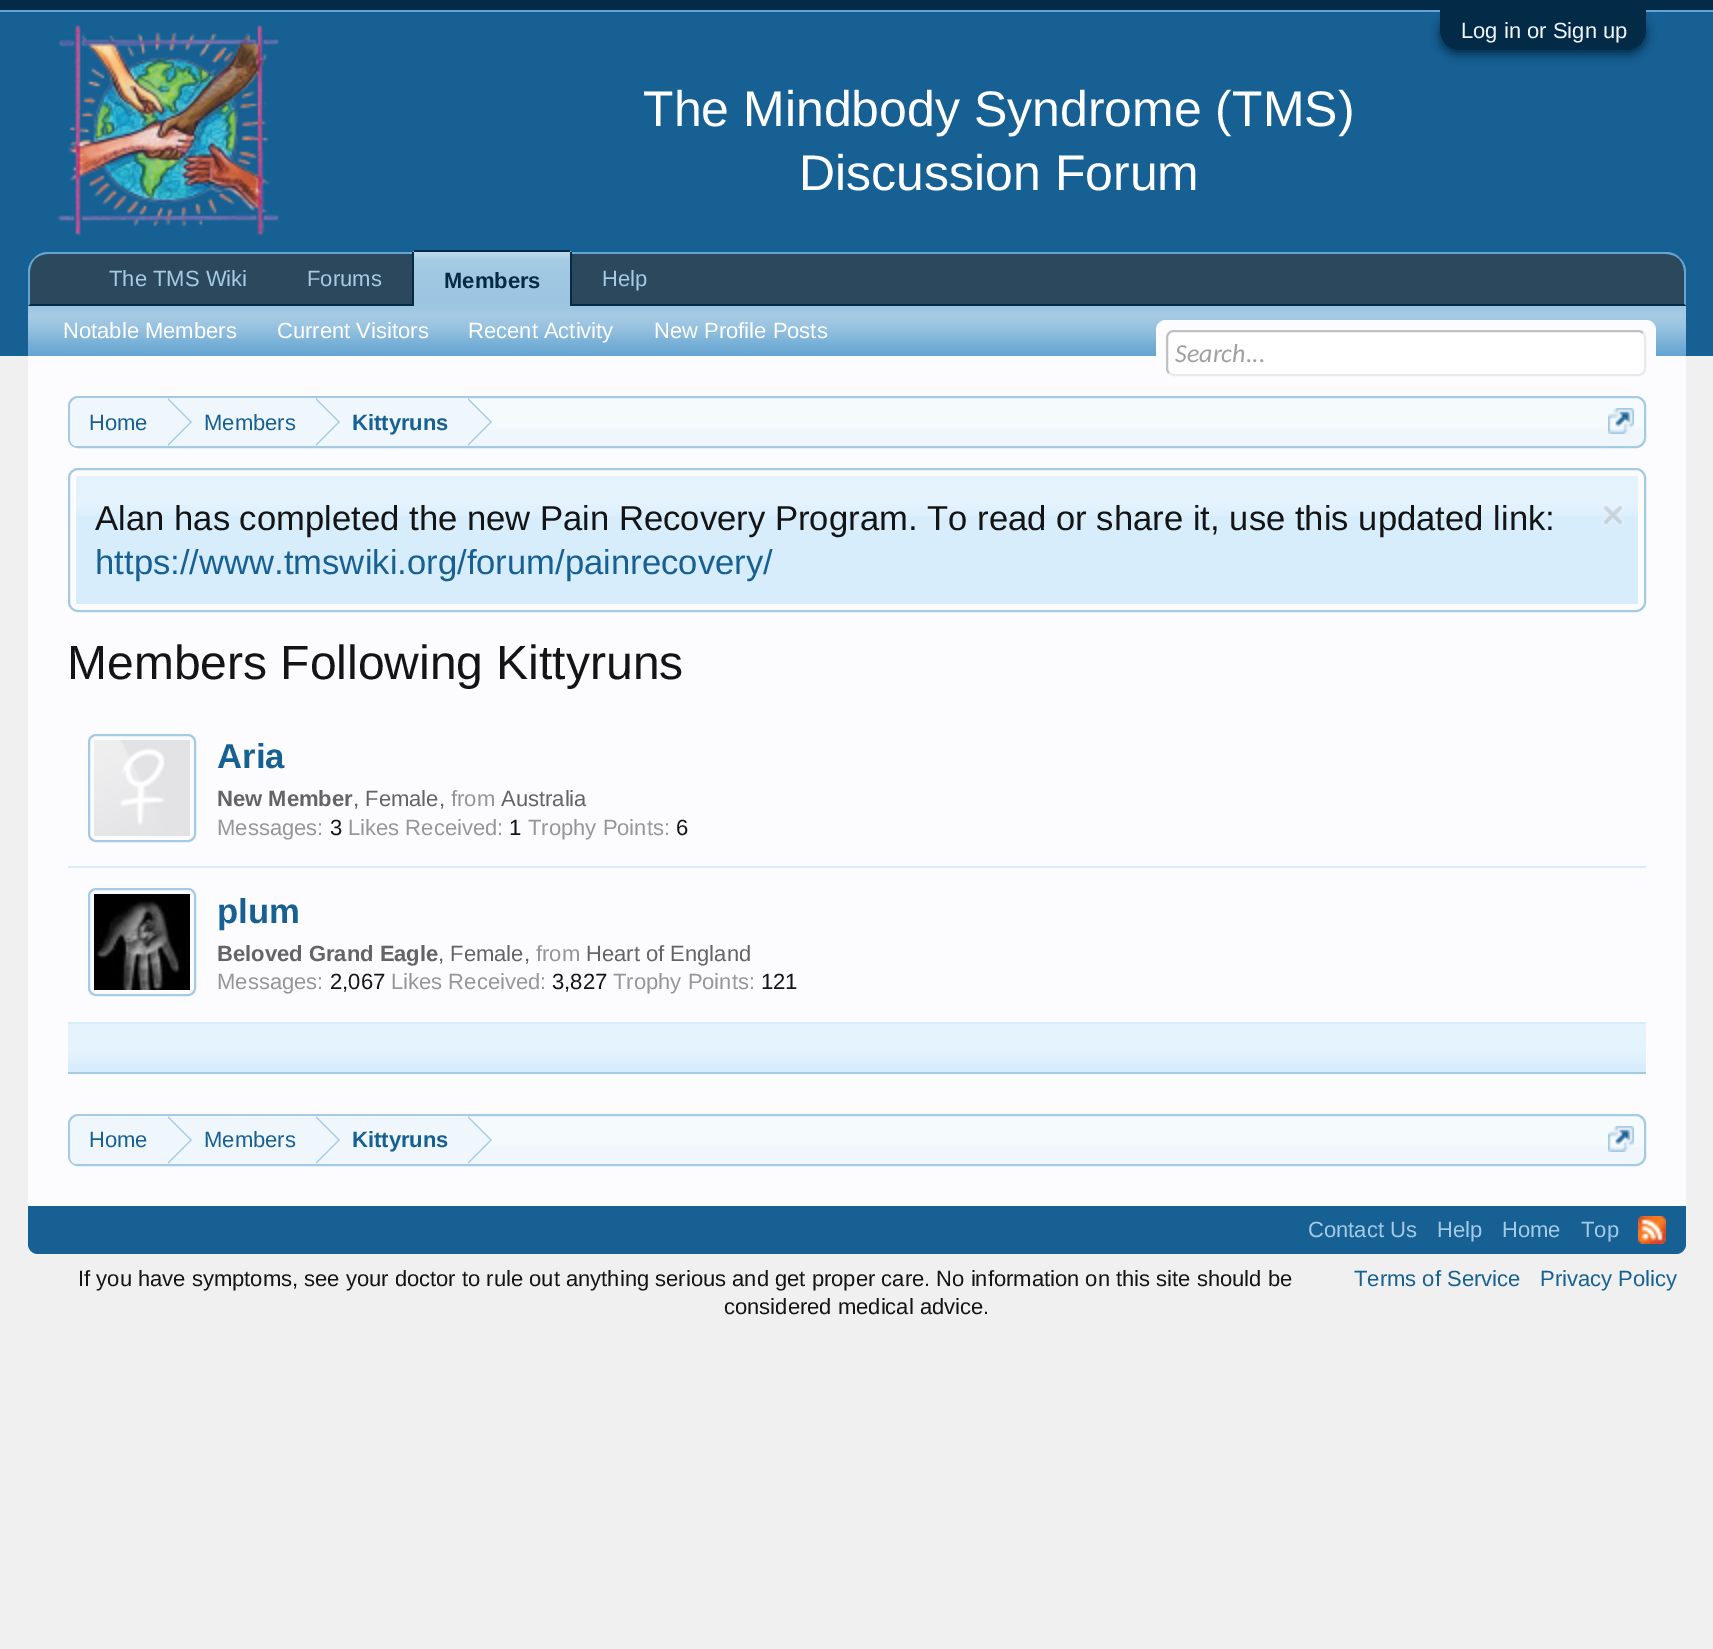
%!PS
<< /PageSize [1713 1649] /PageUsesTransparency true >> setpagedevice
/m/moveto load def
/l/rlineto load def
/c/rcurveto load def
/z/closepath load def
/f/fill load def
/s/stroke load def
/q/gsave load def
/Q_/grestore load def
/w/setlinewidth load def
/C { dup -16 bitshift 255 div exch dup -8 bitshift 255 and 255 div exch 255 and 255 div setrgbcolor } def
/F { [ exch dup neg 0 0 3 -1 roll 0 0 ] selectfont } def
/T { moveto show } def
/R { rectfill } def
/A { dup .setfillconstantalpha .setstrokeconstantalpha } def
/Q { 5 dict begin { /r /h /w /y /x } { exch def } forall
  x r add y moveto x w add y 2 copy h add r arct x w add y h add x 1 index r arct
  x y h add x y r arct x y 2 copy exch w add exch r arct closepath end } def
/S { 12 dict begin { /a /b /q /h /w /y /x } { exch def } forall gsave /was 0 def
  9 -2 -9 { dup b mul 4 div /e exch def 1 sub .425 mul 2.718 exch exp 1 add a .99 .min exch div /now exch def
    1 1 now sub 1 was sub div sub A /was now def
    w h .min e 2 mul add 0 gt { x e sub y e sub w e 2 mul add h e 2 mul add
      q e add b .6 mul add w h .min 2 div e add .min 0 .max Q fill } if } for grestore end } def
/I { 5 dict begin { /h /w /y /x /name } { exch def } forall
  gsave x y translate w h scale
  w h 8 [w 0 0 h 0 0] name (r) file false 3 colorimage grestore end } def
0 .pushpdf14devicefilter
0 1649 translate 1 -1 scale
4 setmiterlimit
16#F0F0F0 C
0 0 1713 1649 R
16#032A46 C
0 0 1713 10 R
16#65A5D1 C
0 10 1713 2 R
16#176093 C
0 12 1713 344 R
16#032A46 C
1440 14 206 40 20 5 1 S
1440 10 m 206 0 l 0 20 l 0 11 -9 20 -20 20 c -166 0 l -11 0 -20 -9 -20 -20 c z f
/LiberationSans-Regular 22 F
16#F0F7FC C
(Log in or Sign up) 1461 38 T
(1.rgb) 57 25 222 211 I
/LiberationSans-Regular 50 F
16#FFFFFF C
(The Mindbody Syndrome \(TMS\)) 643 126 T
(Discussion Forum) 799 190 T
16#2B485C C
48 252 m 1618 0 l 11 0 20 9 20 20 c 0 34 l -1658 0 l 0 -34 l 0 -11 9 -20 20 -20 c z f
16#65A5D1 C
48 252 m -6 0 -10 2 -14 6 c 1 1 l 3 -3 8 -5 13 -5 c 1618 0 l 5 0 10 2 13 5 c 1 -1 l -4 -4 -8 -6 -14 -6 c z f
1686 306 m 0 -34 l 0 -6 -2 -10 -6 -14 c -1 1 l 3 3 5 8 5 13 c 0 32 l z f
16#032A46 C
1686 306 m -2 -2 l -1654 0 l -2 2 l z f
16#65A5D1 C
28 306 m 2 -2 l 0 -32 l 0 -5 2 -10 5 -13 c -1 -1 l -4 4 -6 8 -6 14 c z f
/LiberationSans-Regular 22 F
16#A5CAE4 C
(The TMS Wiki) 109 286 T
(Forums) 307 286 T
(Help) 602 286 T
16#65A5D1 C
416 250 m 152 0 l 2 0 4 2 4 4 c 0 52 l -160 0 l 0 -52 l 0 -2 2 -4 4 -4 c z f
(2.rgb) 414 252 156 54 I
16#032A46 C
414 250 156 2 R
570 252 2 54 R
412 252 2 54 R
/LiberationSans-Bold 22 F
(Members) 444 288 T
16#65A5D1 C
28 306 1658 50 R
(3.rgb) 28 306 1658 47 I
/LiberationSans-Regular 22 F
16#FFFFFF C
(Notable Members) 63 338 T
(Current Visitors) 277 338 T
(Recent Activity) 468 338 T
(New Profile Posts) 654 338 T
16#FCFCFF C
28 356 1658 850 R
1156 320 500 56 10 Q f
16#FFFFFF C
1166 330 480 46 8 Q f
16#E9E9E9 C
2 w
1643 333 m 1.5 1.5 2 3 2 5 c 0 30 l 0 2 -.5 3.5 -2 5 c -1.5 1.5 -3 2 -5 2 c -464 0 l -2 0 -3.5 -.5 -5 -2 c s
16#C0C0C0 C
1169 373 m -1.5 -1.5 -2 -3 -2 -5 c 0 -30 l 0 -2 .5 -3.5 2 -5 c 1.5 -1.5 3 -2 5 -2 c 464 0 l 2 0 3.5 .5 5 2 c s
/Carlito-Italic 26 F
16#A0A0A0 C
(Search...) 1175 362 T
16#F0F7FC C
68 396 1578 52 10 Q f
(4.rgb) 68 398 1578 31 I
16#A5CAE4 C
69 397 1576 50 9 Q s
q
70 398 1574 48 8 Q clip newpath
16#F0F7FC C
80 398 m 88 0 l 0 50 l -88 0 l -5.5 0 -10 -4.5 -10 -10 c 0 -30 l 0 -5.5 4.5 -10 10 -10 c z f
Q_
/LiberationSans-Regular 22 F
16#176093 C
(Home) 89 430 T
16#F0F7FC C
168 398 300 31 R
16#A5CAE4 C
168 446 m 0 -48 l 24 24 l z f
16#F0F7FC C
166 446 m 0 -48 l 24 24 l z f
16#176093 C
(Members) 204 430 T
16#A5CAE4 C
316 446 m 0 -48 l 24 24 l z f
16#F0F7FC C
314 446 m 0 -48 l 24 24 l z f
/LiberationSans-Bold 22 F
16#176093 C
(Kittyruns) 352 430 T
16#A5CAE4 C
468 446 m 0 -48 l 24 24 l z f
16#F0F7FC C
466 446 m 0 -48 l 24 24 l z f
(5.rgb) 1608 408 26 26 I
16#A5CAE4 C
69 469 1576 142 9 Q s
16#D7EDFC C
76 476 1562 128 R
(6.rgb) 76 476 1562 40 I
/LiberationSans-Regular 34.65 F
16#141414 C
(Alan has completed the new Pain Recovery Program. To read or share it, use this updated link:) 95 530 T
16#176093 C
(https://www.tmswiki.org/forum/painrecovery/) 95 574 T
(7.rgb) 1602 504 22 22 I
/LiberationSans-Regular 48 F
16#141414 C
(Members Following Kittyruns) 67 679 T
16#D7EDFC C
68 866 1578 2 R
(8.rgb) 94 740 96 96 I
16#A5CAE4 C
89 735 106 106 7 Q s
/LiberationSans-Bold 34.65 F
16#176093 C
(Aria) 217 768 T
/LiberationSans-Bold 22 F
16#646464 C
(New Member) 217 806 T
/LiberationSans-Regular 22 F
(, Female,) 353 806 T
16#969696 C
(from) 451 806 T
16#646464 C
(Australia) 501 806 T
16#969696 C
(Messages:) 217 835 T
16#141414 C
(3) 330 835 T
16#969696 C
(Likes Received:) 348 835 T
16#141414 C
(1) 509 835 T
16#969696 C
(Trophy Points:) 528 835 T
16#141414 C
(6) 676 835 T
16#D7EDFC C
68 1022 1578 50 R
(9.rgb) 94 894 96 96 I
16#A5CAE4 C
89 889 106 106 7 Q s
/LiberationSans-Bold 34.65 F
16#176093 C
(plum) 217 923 T
/LiberationSans-Bold 22 F
16#646464 C
(Beloved Grand Eagle) 217 961 T
/LiberationSans-Regular 22 F
(, Female,) 438 961 T
16#969696 C
(from) 536 961 T
16#646464 C
(Heart of England) 586 961 T
16#969696 C
(Messages:) 217 989 T
16#141414 C
(2,067) 330 989 T
16#969696 C
(Likes Received:) 391 989 T
16#141414 C
(3,827) 552 989 T
16#969696 C
(Trophy Points:) 613 989 T
16#141414 C
(121) 761 989 T
(10.rgb) 68 1024 1578 40 I
16#A5CAE4 C
68 1072 1578 2 R
16#F0F7FC C
68 1114 1578 52 10 Q f
(4.rgb) 68 1116 1578 31 I
16#A5CAE4 C
69 1115 1576 50 9 Q s
q
70 1116 1574 48 8 Q clip newpath
16#F0F7FC C
80 1116 m 88 0 l 0 50 l -88 0 l -5.5 0 -10 -4.5 -10 -10 c 0 -30 l 0 -5.5 4.5 -10 10 -10 c z f
Q_
16#176093 C
(Home) 89 1147 T
16#F0F7FC C
168 1116 300 31 R
16#A5CAE4 C
168 1164 m 0 -48 l 24 24 l z f
16#F0F7FC C
166 1164 m 0 -48 l 24 24 l z f
16#176093 C
(Members) 204 1147 T
16#A5CAE4 C
316 1164 m 0 -48 l 24 24 l z f
16#F0F7FC C
314 1164 m 0 -48 l 24 24 l z f
/LiberationSans-Bold 22 F
16#176093 C
(Kittyruns) 352 1147 T
16#A5CAE4 C
468 1164 m 0 -48 l 24 24 l z f
16#F0F7FC C
466 1164 m 0 -48 l 24 24 l z f
(5.rgb) 1608 1126 26 26 I
16#176093 C
28 1206 m 1658 0 l 0 38 l 0 5.5 -4.5 10 -10 10 c -1638 0 l -5.5 0 -10 -4.5 -10 -10 c z f
/LiberationSans-Regular 22 F
16#A5CAE4 C
(Contact Us) 1308 1237 T
(Help) 1437 1237 T
(Home) 1502 1237 T
(Top) 1581 1237 T
(11.rgb) 1638 1216 28 28 I
16#141414 C
(If you have symptoms, see your doctor to rule out anything serious and get proper care. No information on this site should be) 78 1286 T
16#176093 C
(Terms of Service) 1354 1286 T
(Privacy Policy) 1540 1286 T
16#141414 C
(considered medical advice.) 724 1314 T
.poppdf14devicefilter showpage
